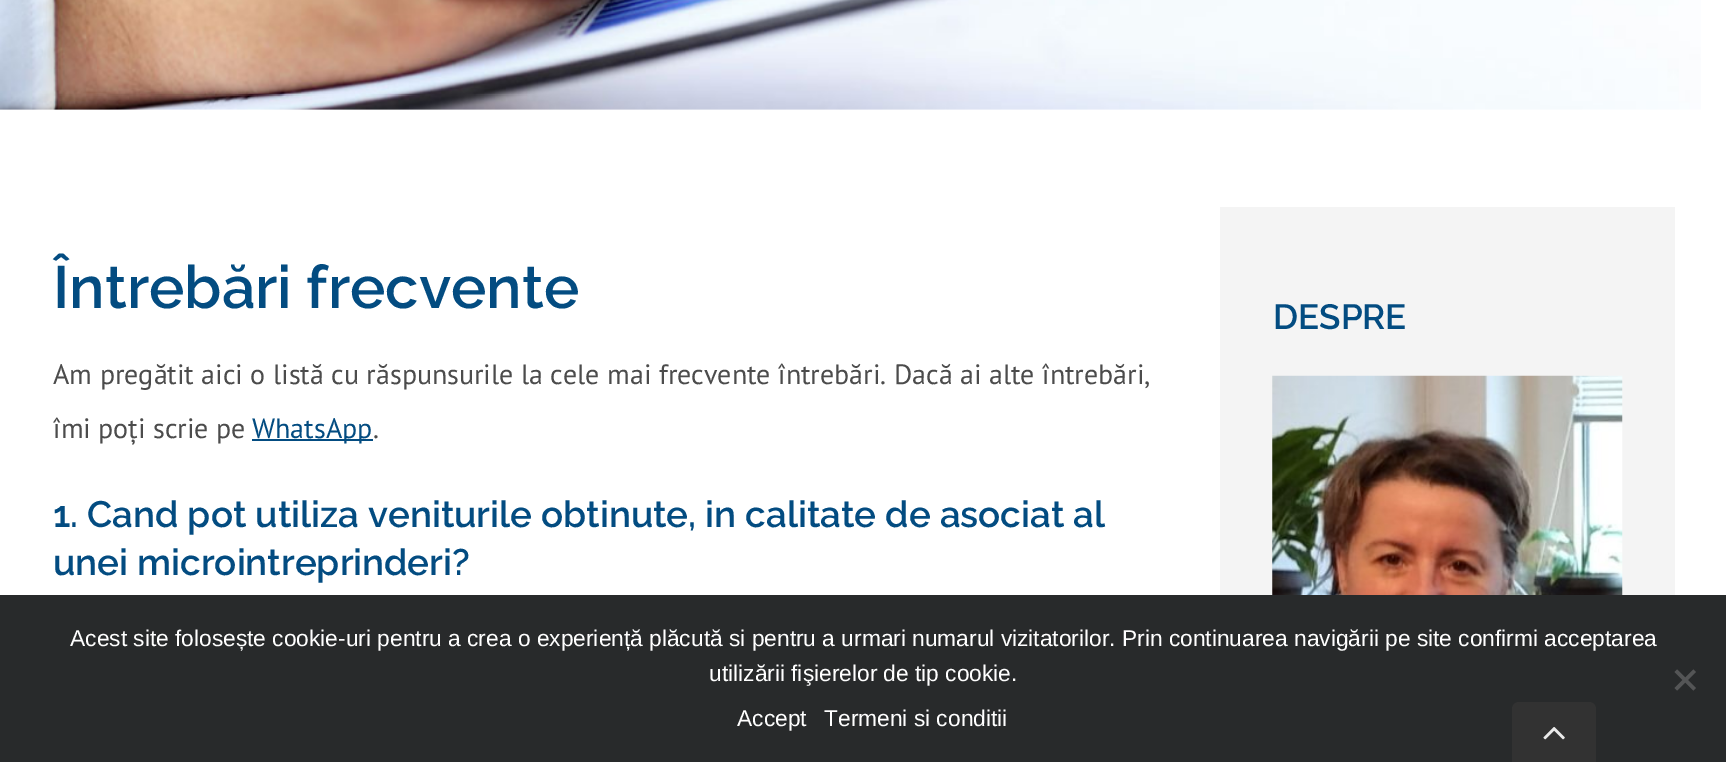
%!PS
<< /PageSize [1726 762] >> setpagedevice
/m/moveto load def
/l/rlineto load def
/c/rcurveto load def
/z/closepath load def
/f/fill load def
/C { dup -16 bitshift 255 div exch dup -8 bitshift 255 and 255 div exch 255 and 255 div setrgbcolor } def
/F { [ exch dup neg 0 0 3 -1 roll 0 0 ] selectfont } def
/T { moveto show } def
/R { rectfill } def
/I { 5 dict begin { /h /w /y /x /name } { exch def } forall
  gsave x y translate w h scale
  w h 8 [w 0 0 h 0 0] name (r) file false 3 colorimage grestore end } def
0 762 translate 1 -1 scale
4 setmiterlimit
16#FFFFFF C
0 0 1726 762 R
(1.rgb) 0 0 1701 110 I
/Raleway-SemiBold 59.5 F
16#034C81 C
(Întrebări frecvente) 53 308 T
/PTSans-Regular 28 F
16#4C4C4C C
(Am pregătit aici o listă cu răspunsurile la cele mai frecvente întrebări. Dacă ai alte întrebări,) 53 384 T
(îmi poți scrie pe) 53 438 T
16#034C81 C
252 439 121 2 R
(WhatsApp) 252 438 T
16#4C4C4C C
(.) 373 438 T
/Raleway-SemiBold 36.75 F
16#034C81 C
(1. Cand pot utiliza veniturile obtinute, in calitate de asociat al) 53 527 T
(unei microintreprinderi?) 53 575 T
16#F4F4F4 C
1220 207 455 388 R
/Raleway-SemiBold 35 F
16#034C81 C
(DESPRE) 1273 329 T
(2.rgb) 1272 375 351 220 I
16#282A2B C
0 595 1726 167 R
/LiberationSans-Regular 22.75 F
16#FFFFFF C
(Acest site folosește cookie-uri pentru a crea o experiență plăcută si pentru a urmari numarul vizitatorilor. Prin continuarea navigării pe site confirmi acceptarea) 70 646 T
(utilizării fişierelor de tip cookie.) 709 681 T
16#545556 C
1693.5 669.5 m 2.5 2.5 l -19 18.5 l -2.5 -2.5 l z f
1674.5 672 m 2.5 -2.5 l 19 18.5 l -2.5 2.5 l z f
16#FFFFFF C
(Accept) 737 726 T
(Termeni si conditii) 824 726 T
16#323232 C
1519 702 m 70 0 l 4 0 7 3 7 7 c 0 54 l -84 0 l 0 -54 l 0 -4 3 -7 7 -7 c z f
(3.rgb) 1543 727 22 13 I
showpage
